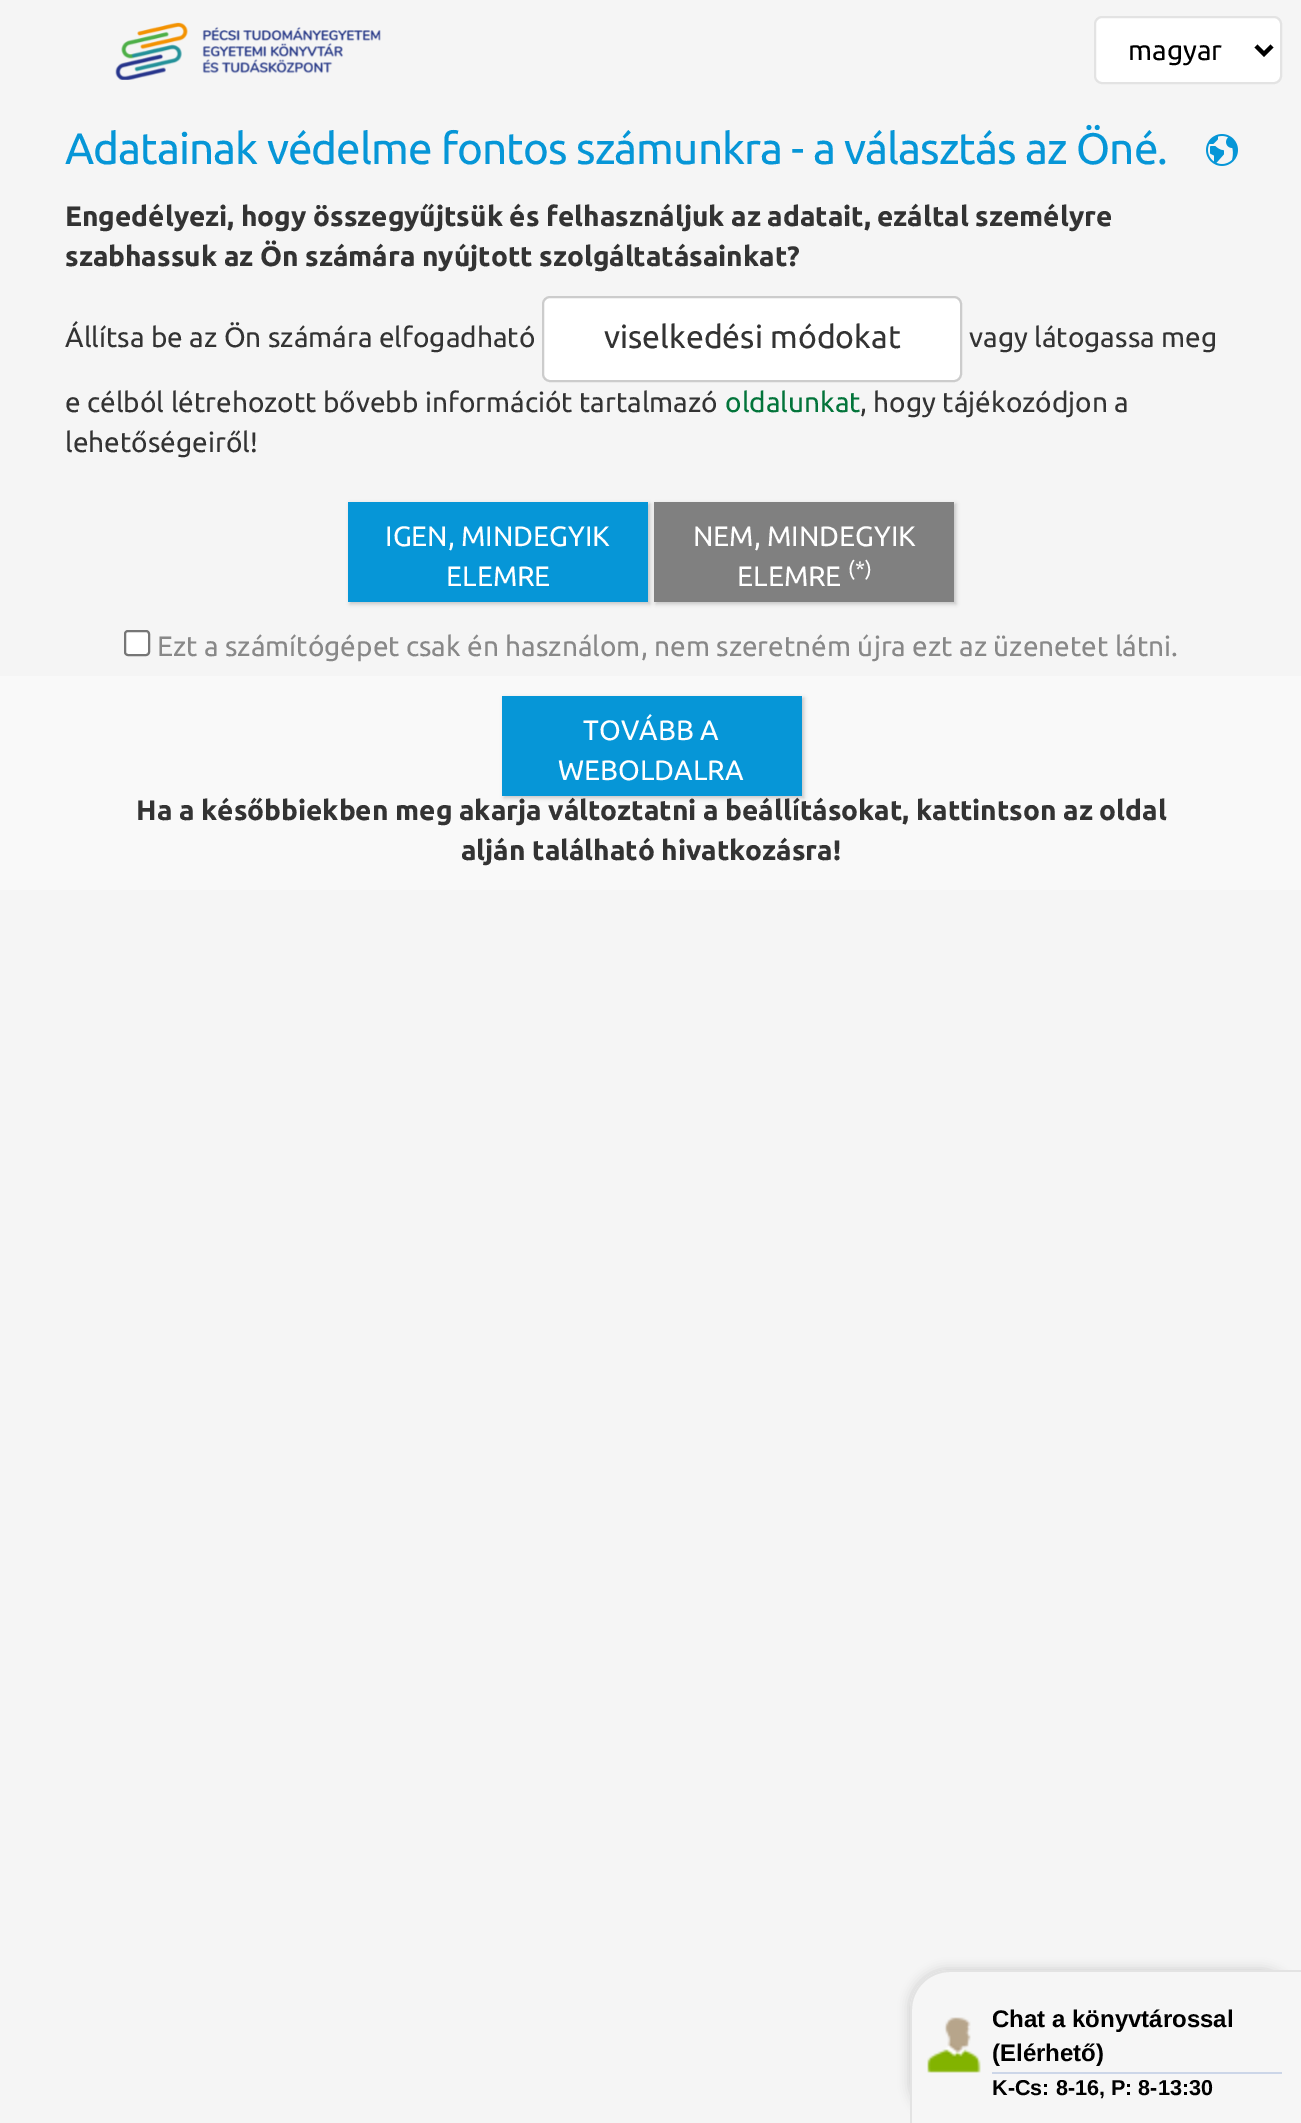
%!PS
<< /PageSize [1301 2123] /PageUsesTransparency true >> setpagedevice
/m/moveto load def
/l/rlineto load def
/c/rcurveto load def
/z/closepath load def
/f/fill load def
/s/stroke load def
/q/gsave load def
/Q_/grestore load def
/w/setlinewidth load def
/C { dup -16 bitshift 255 div exch dup -8 bitshift 255 and 255 div exch 255 and 255 div setrgbcolor } def
/F { [ exch dup neg 0 0 3 -1 roll 0 0 ] selectfont } def
/T { moveto show } def
/R { rectfill } def
/A { dup .setfillconstantalpha .setstrokeconstantalpha } def
/Q { 5 dict begin { /r /h /w /y /x } { exch def } forall
  x r add y moveto x w add y 2 copy h add r arct x w add y h add x 1 index r arct
  x y h add x y r arct x y 2 copy exch w add exch r arct closepath end } def
/S { 12 dict begin { /a /b /q /h /w /y /x } { exch def } forall gsave /was 0 def
  9 -2 -9 { dup b mul 4 div /e exch def 1 sub .425 mul 2.718 exch exp 1 add a .99 .min exch div /now exch def
    1 1 now sub 1 was sub div sub A /was now def
    w h .min e 2 mul add 0 gt { x e sub y e sub w e 2 mul add h e 2 mul add
      q e add b .6 mul add w h .min 2 div e add .min 0 .max Q fill } if } for grestore end } def
/I { 5 dict begin { /h /w /y /x /name } { exch def } forall
  gsave x y translate w h scale
  w h 8 [w 0 0 h 0 0] name (r) file false 3 colorimage grestore end } def
0 .pushpdf14devicefilter
0 2123 translate 1 -1 scale
4 setmiterlimit
16#F5F5F5 C
0 0 1301 2123 R
(1.rgb) 115 22 266 58 I
16#FFFFFF C
1095 17 186 66 7 Q q f Q_
16#E3E3E3 C
2 w
s
16#000000 C
4 w
1256 46 m 8 8 l 8 -8 l s
/Ubuntu-Regular 28 F
(magyar) 1128 60 T
(2.rgb) 1206 134 32 32 I
/Ubuntu-Regular 44 F
16#0696D7 C
65 164 m -.95 0 (Adatainak védelme fontos számunkra - a választás az Öné.) ashow
/Ubuntu-Bold 28 F
16#333333 C
(Engedélyezi, hogy összegyűjtsük és felhasználjuk az adatait, ezáltal személyre) 65 226 T
(szabhassuk az Ön számára nyújtott szolgáltatásainkat?) 65 266 T
/Ubuntu-Regular 28 F
(Állítsa be az Ön számára elfogadható) 65 347 T
16#FFFFFF C
543 297 418 84 7 Q q f Q_
16#CCCCCC C
2 w
s
/Ubuntu-Regular 32 F
16#333333 C
(viselkedési módokat) 604 348 T
/Ubuntu-Regular 28 F
(vagy látogassa meg) 969 347 T
(e célból létrehozott bővebb információt tartalmazó) 65 412 T
16#02743A C
(oldalunkat) 725 412 T
16#333333 C
(, hogy tájékozódjon a) 860 412 T
(lehetőségeiről!) 65 452 T
16#000000 C
350 504 300 100 0 2 .2 S
16#0696D7 C
348 502 300 100 R
16#FFFFFF C
(IGEN, MINDEGYIK) 385 546 T
(ELEMRE) 446 586 T
16#000000 C
656 504 300 100 0 2 .2 S
16#808080 C
654 502 300 100 R
16#FFFFFF C
(NEM, MINDEGYIK) 693 546 T
(ELEMRE) 737 586 T
/Ubuntu-Regular 21 F
(\(*\)) 848 576 T
125 631 24 24 3 Q q f Q_
16#767676 C
s
/Ubuntu-Regular 28 F
16#888888 C
(Ezt a számítógépet csak én használom, nem szeretném újra ezt az üzenetet látni.) 157 656 T
16#F9F9F9 C
0 676 1301 214 R
16#000000 C
504 698 300 100 0 2 .2 S
16#0696D7 C
502 696 300 100 R
16#FFFFFF C
(TOVÁBB A) 583 740 T
(WEBOLDALRA) 558 780 T
/Ubuntu-Bold 28 F
16#333333 C
(Ha a későbbiekben meg akarja változtatni a beállításokat, kattintson az oldal) 136 820 T
(alján található hivatkozásra!) 461 860 T
16#323232 C
908 1968 392 154 40 5 .17 S
16#F6F6F6 C
950 1970 m 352 0 l 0 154 l -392 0 l 0 -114 l 0 -22 18 -40 40 -40 c z f
16#E3E3E3 C
950 1970 m 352 0 l 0 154 l -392 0 l 0 -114 l 0 -22 18 -40 40 -40 c z 950 1972 m 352 0 l 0 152 l -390 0 l 0 -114 l 0 -21 17 -38 38 -38 c z eofill
(3.rgb) 927 2017 54 56 I
/LiberationSans-Bold 24 F
16#000000 C
(Chat a könyvtárossal) 992 2027 T
(\(Elérhető\)) 992 2061 T
16#CCD6E8 C
992 2072 290 2 R
/LiberationSans-Bold 21.6 F
16#000000 C
(K-Cs: 8-16, P: 8-13:30) 992 2095 T
.poppdf14devicefilter showpage
